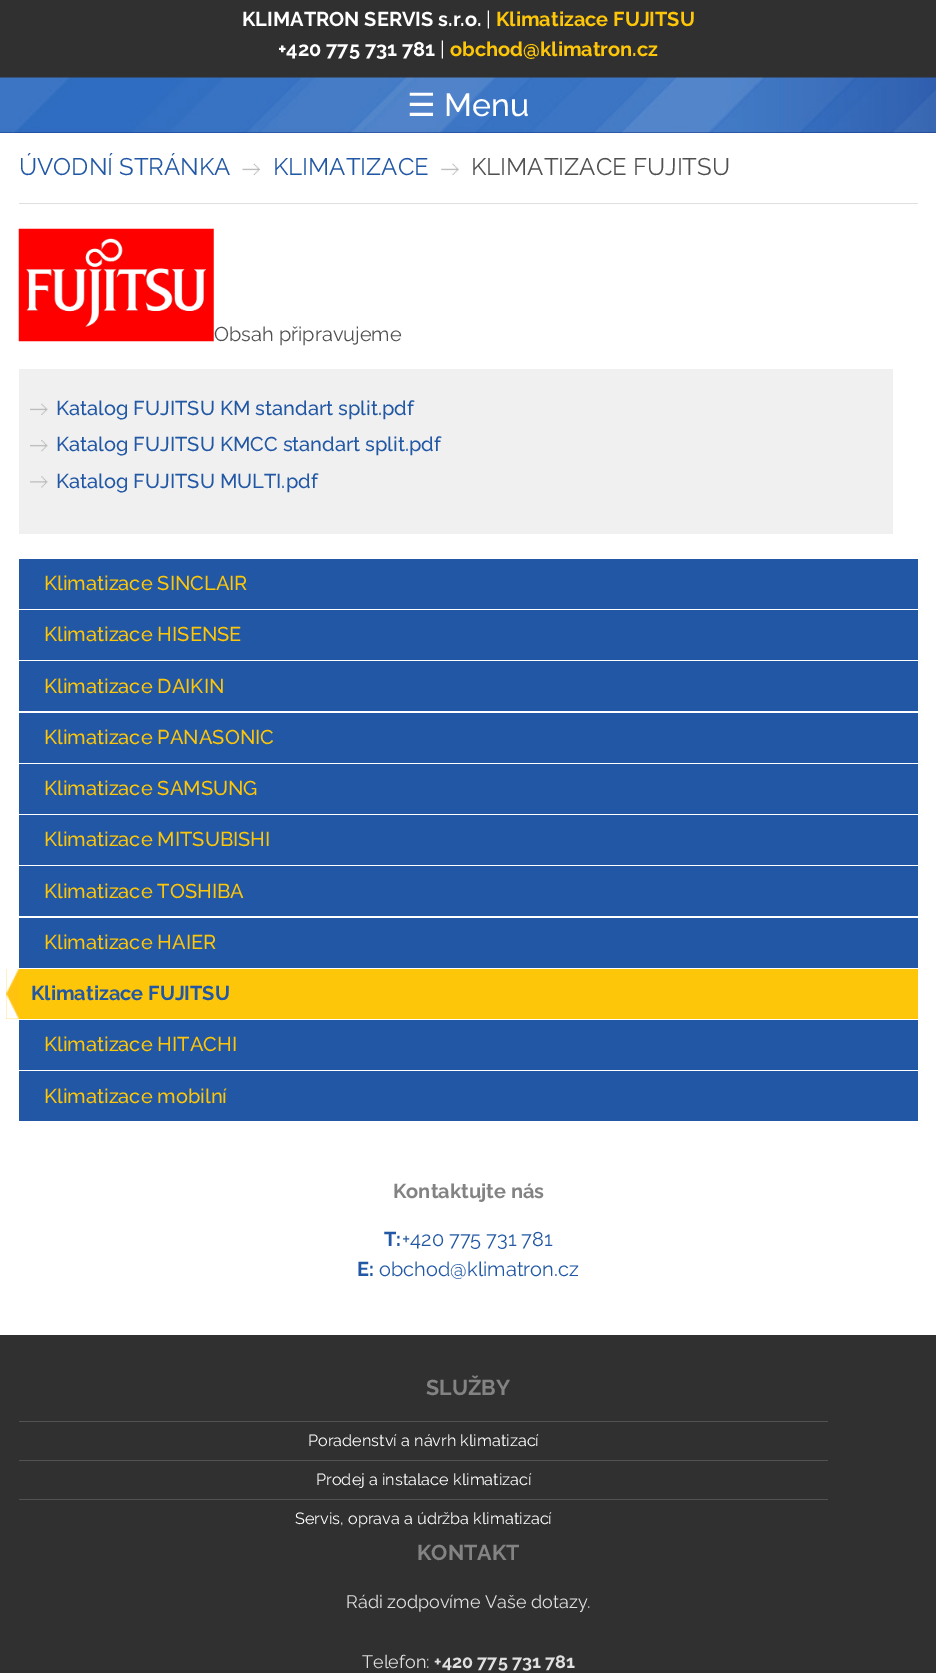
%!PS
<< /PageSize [936 1673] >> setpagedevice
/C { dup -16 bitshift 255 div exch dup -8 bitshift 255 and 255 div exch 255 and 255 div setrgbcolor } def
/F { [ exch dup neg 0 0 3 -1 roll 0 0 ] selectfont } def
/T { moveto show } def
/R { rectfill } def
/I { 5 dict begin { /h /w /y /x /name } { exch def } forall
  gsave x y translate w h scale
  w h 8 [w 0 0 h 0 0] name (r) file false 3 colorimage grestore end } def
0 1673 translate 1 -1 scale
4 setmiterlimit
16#FFFFFF C
0 0 936 1673 R
16#303030 C
0 0 936 78 R
/Raleway-Bold 20 F
16#FFFFFF C
(KLIMATRON SERVIS s.r.o.) 242 26 T
/Raleway-Regular 20 F
(|) 486 26 T
/Raleway-Bold 20 F
16#FDC609 C
(Klimatizace FUJITSU) 496 26 T
16#FFFFFF C
(+420 775 731 781) 278 56 T
/Raleway-Regular 20 F
(|) 440 56 T
/Raleway-Bold 20 F
16#FDC609 C
(obchod@klimatron.cz) 450 56 T
16#163585 C
0 132 936 1 R
(1.rgb) 0 77 936 56 I
/DejaVuSans-Regular 32 F
16#FFFFFF C
(☰) 407 116 T
/Raleway-Medium 32 F
(Menu) 444 116 T
/Raleway-Regular 24 F
16#2157A4 C
(ÚVODNÍ STRÁNKA) 19 175 T
(2.rgb) 242 163 18 12 I
(KLIMATIZACE) 273 175 T
(3.rgb) 441 163 18 12 I
16#505050 C
(KLIMATIZACE FUJITSU) 471 175 T
16#DFDFDF C
19 203 899 1 R
(4.rgb) 18 228 196 114 I
/Raleway-Regular 20 F
16#505050 C
(Obsah připravujeme) 214 341 T
16#F0F0F0 C
19 369 874 165 R
(5.rgb) 30 403 18 12 I
/Raleway-Medium 20 F
16#2157A4 C
(Katalog FUJITSU KM standart split.pdf) 56 415 T
(6.rgb) 30 440 18 12 I
(Katalog FUJITSU KMCC standart split.pdf) 56 451 T
(7.rgb) 30 476 18 12 I
(Katalog FUJITSU MULTI.pdf) 56 488 T
19 559 899 50 R
16#FDC609 C
(Klimatizace SINCLAIR) 44 590 T
16#2157A4 C
19 610 899 50 R
16#FDC609 C
(Klimatizace HISENSE) 44 641 T
16#2157A4 C
19 661 899 50 R
16#FDC609 C
(Klimatizace DAIKIN) 44 693 T
16#2157A4 C
19 713 899 50 R
16#FDC609 C
(Klimatizace PANASONIC) 44 744 T
16#2157A4 C
19 764 899 50 R
16#FDC609 C
(Klimatizace SAMSUNG) 44 795 T
16#2157A4 C
19 815 899 50 R
16#FDC609 C
(Klimatizace MITSUBISHI) 44 846 T
16#2157A4 C
19 866 899 50 R
16#FDC609 C
(Klimatizace TOSHIBA) 44 898 T
16#2157A4 C
19 918 899 50 R
16#FDC609 C
(Klimatizace HAIER) 44 949 T
6 969 912 50 R
(8.rgb) 6 968 13 51 I
/Raleway-Bold 20 F
16#2157A4 C
(Klimatizace FUJITSU) 31 1000 T
19 1020 899 50 R
/Raleway-Medium 20 F
16#FDC609 C
(Klimatizace HITACHI) 44 1051 T
16#2157A4 C
19 1071 899 50 R
16#FDC609 C
(Klimatizace mobilní) 44 1103 T
/Raleway-Bold 20 F
16#838383 C
(Kontaktujte nás) 393 1198 T
16#2157A4 C
(T:) 384 1246 T
/Raleway-Regular 20 F
(+420 775 731 781) 402 1246 T
/Raleway-Bold 20 F
(E:) 357 1276 T
/Raleway-Regular 20 F
(obchod@klimatron.cz) 379 1276 T
16#303030 C
0 1335 936 338 R
/Raleway-Bold 21.5 F
16#838383 C
(SLUŽBY) 426 1395 T
16#525252 C
19 1421 809 1 R
/Raleway-Regular 16.25 F
16#FFFFFF C
(Poradenství a návrh klimatizací) 308 1446 T
16#525252 C
19 1460 809 1 R
16#FFFFFF C
(Prodej a instalace klimatizací) 316 1485 T
16#525252 C
19 1499 809 1 R
16#FFFFFF C
(Servis, oprava a údržba klimatizací) 295 1524 T
/Raleway-Bold 21.5 F
16#838383 C
(KONTAKT) 417 1560 T
/Raleway-Regular 18 F
16#E0E0E0 C
(Rádi zodpovíme Vaše dotazy.) 346 1608 T
(Telefon:) 362 1668 T
/Raleway-Bold 18 F
(+420 775 731 781) 434 1668 T
showpage
